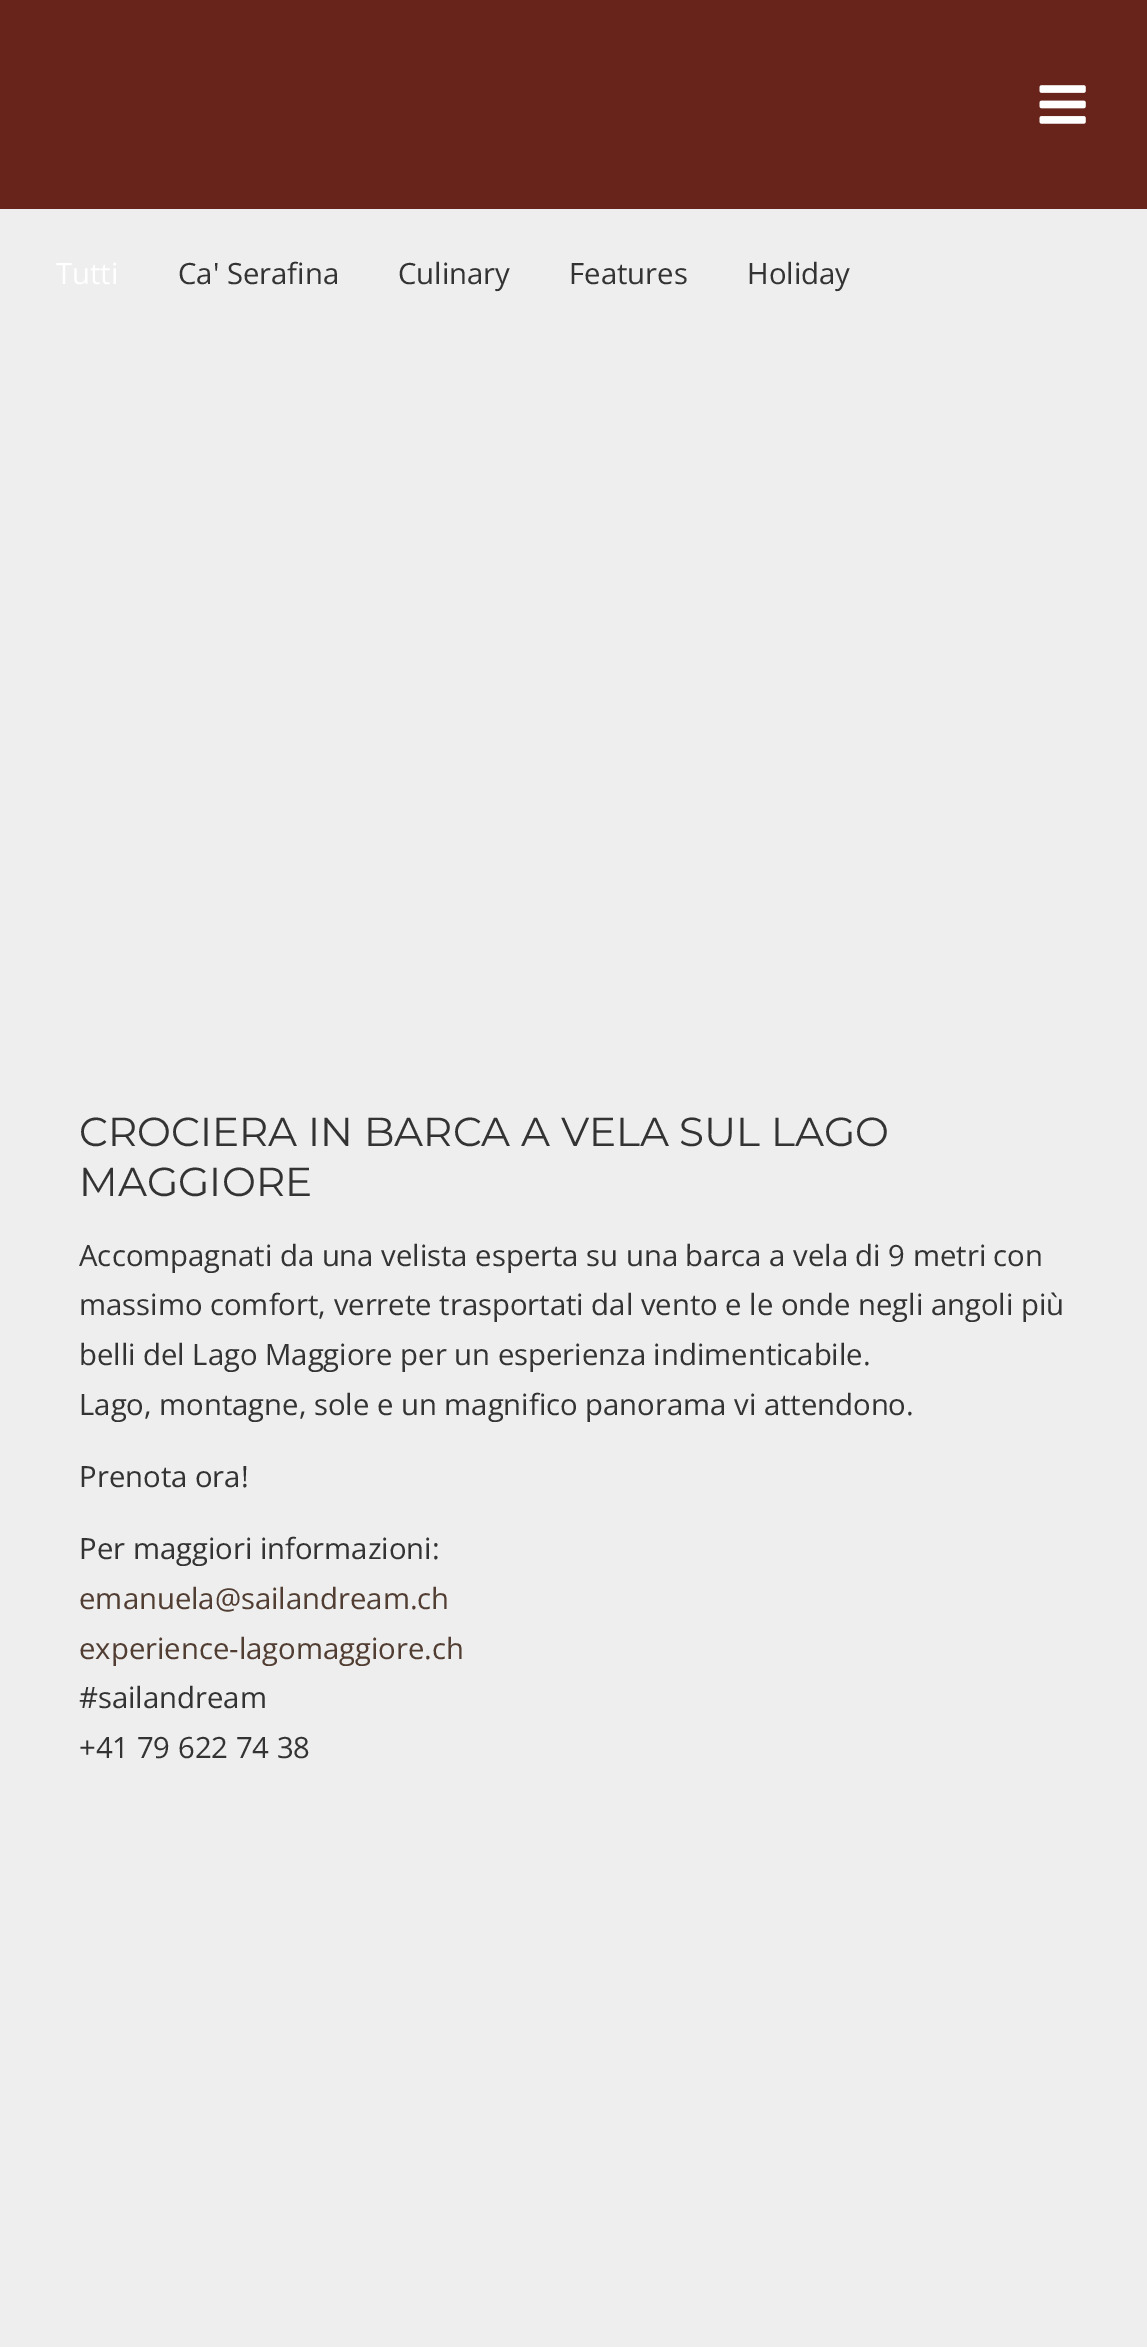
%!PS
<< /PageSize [1147 2347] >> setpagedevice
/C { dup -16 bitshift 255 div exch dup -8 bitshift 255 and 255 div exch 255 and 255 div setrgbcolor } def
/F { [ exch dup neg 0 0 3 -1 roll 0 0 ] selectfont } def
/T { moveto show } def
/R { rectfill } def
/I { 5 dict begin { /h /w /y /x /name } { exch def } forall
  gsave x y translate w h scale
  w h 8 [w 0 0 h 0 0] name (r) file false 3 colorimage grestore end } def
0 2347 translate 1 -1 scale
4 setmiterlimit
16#EEEEEE C
0 0 1147 2347 R
16#68231A C
0 0 1147 209 R
(1.rgb) 1039 85 47 39 I
/OpenSans-Regular 29.25 F
16#FFFFFF C
(Tutti) 56 284 T
16#333333 C
(Ca' Serafina) 178 284 T
(Culinary) 398 284 T
(Features) 569 284 T
(Holiday) 747 284 T
/Montserrat-Regular 40.5 F
(CROCIERA IN BARCA A VELA SUL LAGO) 79 1146 T
(MAGGIORE) 79 1196 T
/OpenSans-Regular 29.25 F
(Accompagnati da una velista esperta su una barca a vela di 9 metri con) 79 1266 T
(massimo comfort, verrete trasportati dal vento e le onde negli angoli più) 79 1315 T
(belli del Lago Maggiore per un esperienza indimenticabile.) 79 1365 T
(Lago, montagne, sole e un magnifico panorama vi attendono.) 79 1415 T
(Prenota ora!) 79 1487 T
(Per maggiori informazioni:) 79 1559 T
16#513D32 C
(emanuela@sailandream.ch) 79 1609 T
(experience-lagomaggiore.ch) 79 1659 T
16#333333 C
(#sailandream) 79 1708 T
(+41 79 622 74 38) 79 1758 T
showpage
